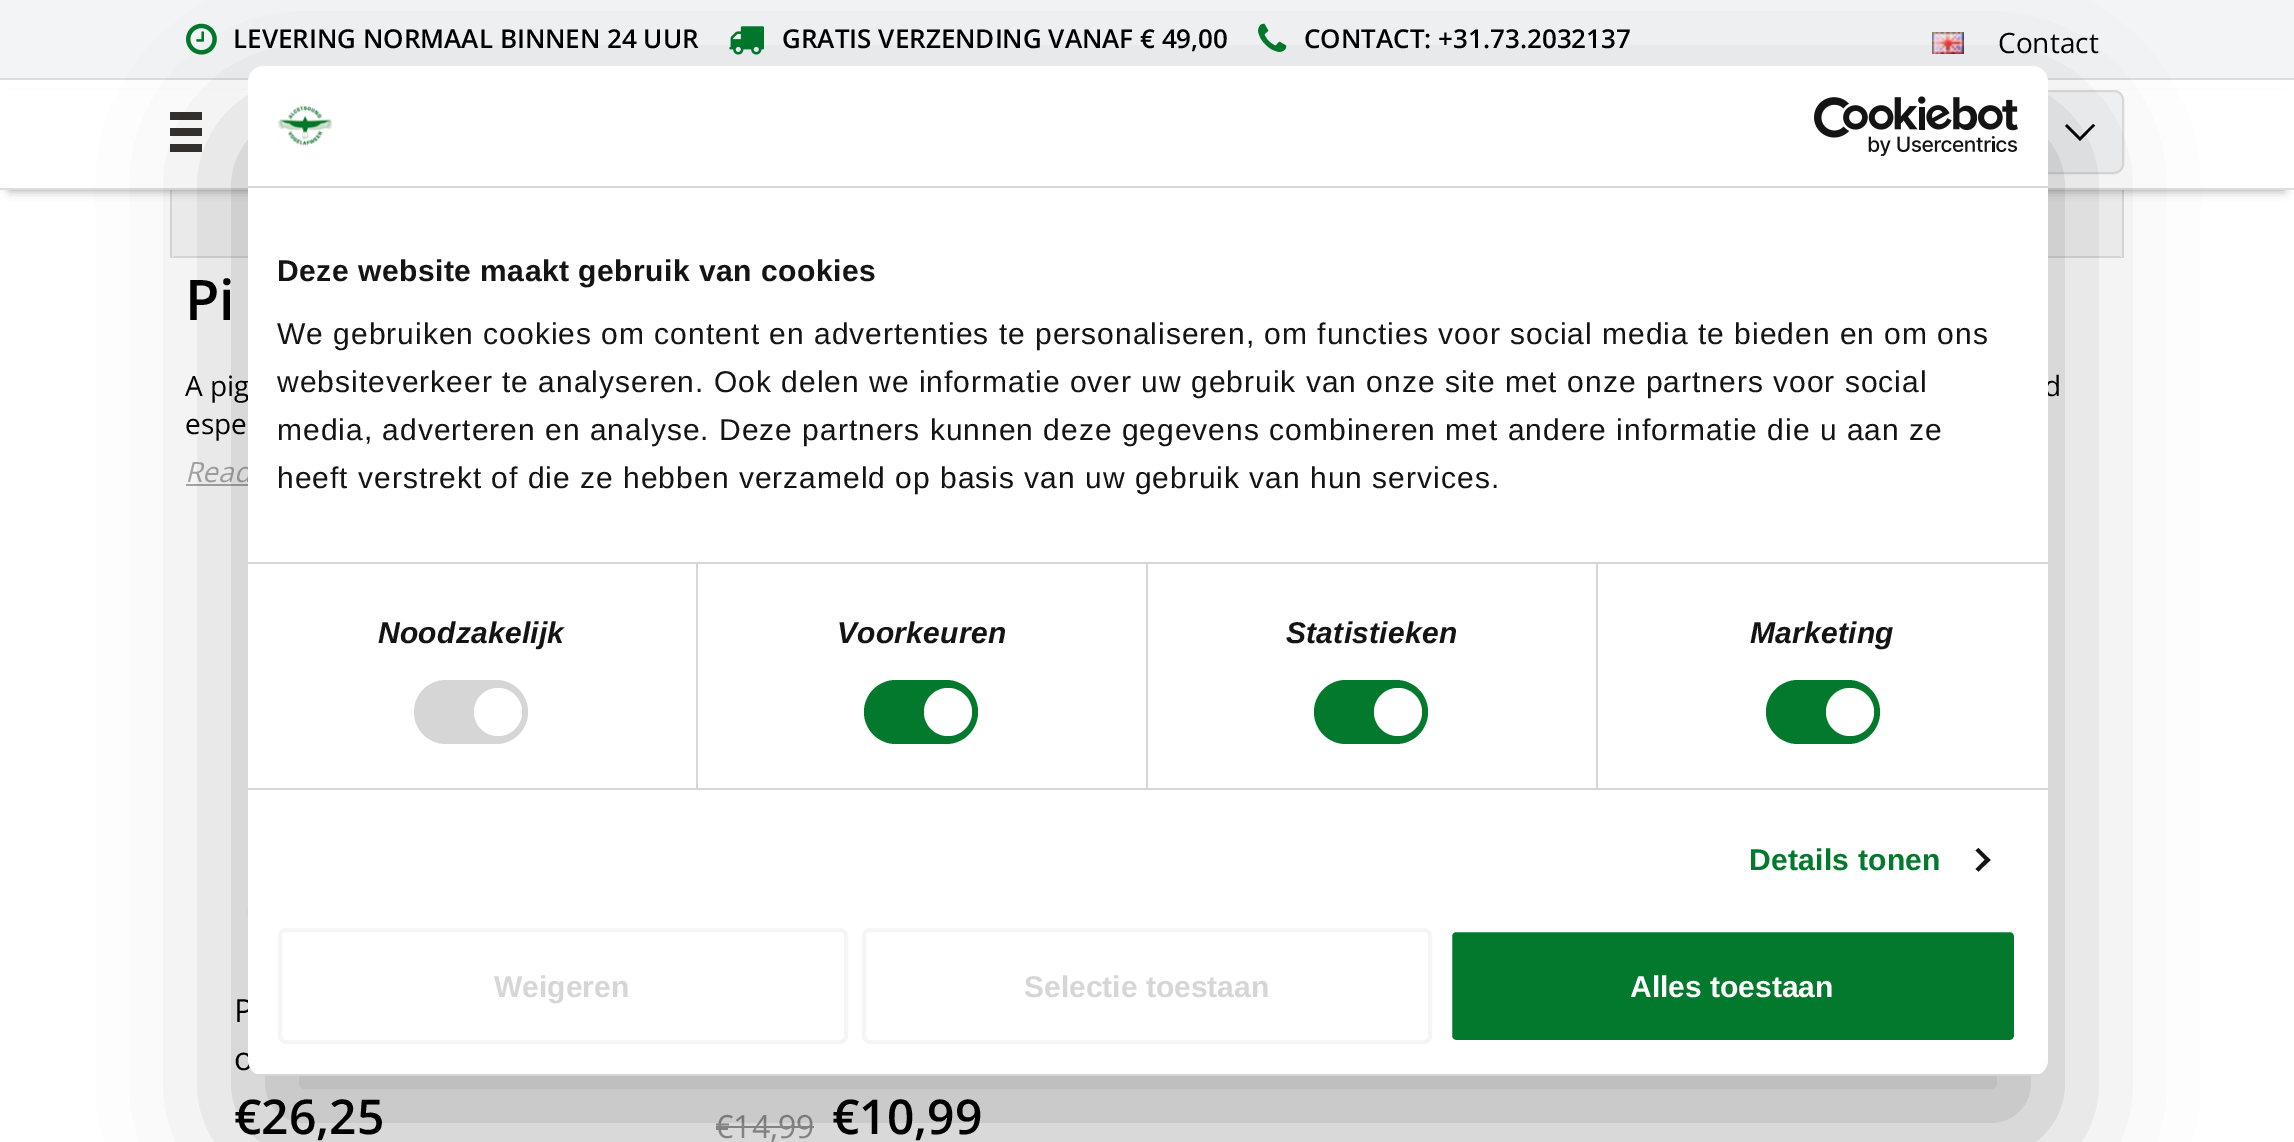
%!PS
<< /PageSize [2294 1142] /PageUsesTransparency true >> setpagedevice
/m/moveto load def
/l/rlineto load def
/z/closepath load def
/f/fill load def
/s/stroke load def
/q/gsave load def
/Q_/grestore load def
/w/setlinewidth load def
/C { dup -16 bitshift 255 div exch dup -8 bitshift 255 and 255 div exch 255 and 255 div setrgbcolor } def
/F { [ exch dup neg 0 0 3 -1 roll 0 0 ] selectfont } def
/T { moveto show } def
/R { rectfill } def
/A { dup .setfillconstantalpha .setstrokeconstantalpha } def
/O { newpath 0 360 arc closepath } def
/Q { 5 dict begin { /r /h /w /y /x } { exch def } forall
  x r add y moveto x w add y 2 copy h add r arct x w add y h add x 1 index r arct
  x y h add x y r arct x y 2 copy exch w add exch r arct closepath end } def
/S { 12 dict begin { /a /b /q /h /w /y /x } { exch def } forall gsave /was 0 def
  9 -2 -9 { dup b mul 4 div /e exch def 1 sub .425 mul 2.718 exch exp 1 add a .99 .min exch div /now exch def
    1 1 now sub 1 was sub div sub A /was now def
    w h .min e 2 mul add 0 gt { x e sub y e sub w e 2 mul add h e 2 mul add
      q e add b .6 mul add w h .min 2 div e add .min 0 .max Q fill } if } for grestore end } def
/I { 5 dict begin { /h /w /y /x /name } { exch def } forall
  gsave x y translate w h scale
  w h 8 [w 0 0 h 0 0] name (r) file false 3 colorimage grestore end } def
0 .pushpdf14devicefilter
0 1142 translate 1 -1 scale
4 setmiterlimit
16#FFFFFF C
0 0 2294 1142 R
16#F3F4F6 C
0 0 2294 78 R
16#DDDDDD C
0 78 2294 2 R
(1.rgb) 186 23 31 32 I
/OpenSans-SemiBold 26 F
16#000000 C
(LEVERING NORMAAL BINNEN 24 UUR) 233 48 T
(2.rgb) 729 26 35 29 I
(GRATIS VERZENDING VANAF € 49,00) 782 48 T
(3.rgb) 1258 23 29 29 I
(CONTACT: +31.73.2032137) 1304 48 T
(4.rgb) 1932 32 32 22 I
/OpenSans-Regular 28 F
(Contact) 1998 53 T
16#DDDDDD C
2122 188 2 70 R
170 188 2 70 R
16#F5F5F5 C
172 190 1950 68 R
16#000000 C
10 100 2274 90 0 5 .4 S
16#FFFFFF C
0 90 2294 98 R
16#DDDDDD C
0 188 2294 2 R
16#34312F C
170 112 32 8 R
170 128 32 8 R
170 144 32 8 R
16#F3F4F6 C
1905 91 218 82 9 Q q f Q_
16#DDDDDD C
2 w
s
16#000000 C
2078 139 m 2 2 l 15 -15.5 l -2 -1.5 l -13 13 l -13 -13 l -2 2 l z f
16#DDDDDD C
2122 258 m -1950 0 l 2 -2 l 1946 0 l z f
/OpenSans-SemiBold 56 F
16#000000 C
(Pi) 185 320 T
/OpenSans-Regular 28 F
(A pig) 185 396 T
(d) 2044 396 T
(espe) 185 434 T
/OpenSans-Italic 28 F
16#AAAAAA C
(Read) 185 482 T
186 484 62 2 R
(5.rgb) 246 600 2 344 I
/OpenSans-Regular 32 F
16#000000 C
(P) 234 1022 T
(o) 234 1070 T
/OpenSans-SemiBold 48 F
(€26,25) 234 1134 T
q
716 1082 382 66 rectclip
/OpenSans-Regular 32 F
16#999999 C
(€14,99) 715 1138 T
Q_
16#999999 C
716 1126 98 2 R
16#000000 C
(€10,99) 832 1134 T
248 130 1800 1010 16 68 .3 S
16#FFFFFF C
248 66 1800 1010 16 Q f
16#D6D6D6 C
248 186 1800 2 R
(6.rgb) 278 105 54 41 I
(7.rgb) 1814 96 204 60 I
248 562 1800 2 R
/LiberationSans-Bold 30 F
16#141414 C
277 281 m .5 0 (Deze website maakt gebruik van cookies) ashow
/LiberationSans-Regular 30 F
277 344 m 1 0 (We gebruiken cookies om content en advertenties te personaliseren, om functies voor social media te bieden en om ons) ashow
277 392 m 1 0 (websiteverkeer te analyseren. Ook delen we informatie over uw gebruik van onze site met onze partners voor social) ashow
277 440 m 1 0 (media, adverteren en analyse. Deze partners kunnen deze gegevens combineren met andere informatie die u aan ze) ashow
277 488 m 1 0 (heeft verstrekt of die ze hebben verzameld op basis van uw gebruik van hun services.) ashow
16#D6D6D6 C
248 788 1800 2 R
696 564 2 224 R
/LiberationSans-BoldItalic 30 F
16#141414 C
378 643 m .25 0 (Noodzakelijk) ashow
16#D6D6D6 C
414 680 114 64 32 Q f
16#FFFFFF C
498 712 24 O f
16#D6D6D6 C
1146 564 2 224 R
16#141414 C
837 643 m .25 0 (Voorkeuren) ashow
16#02792C C
864 680 114 64 32 Q f
16#FFFFFF C
948 712 24 O f
16#D6D6D6 C
1596 564 2 224 R
16#141414 C
1286 643 m .25 0 (Statistieken) ashow
16#02792C C
1314 680 114 64 32 Q f
16#FFFFFF C
1398 712 24 O f
16#141414 C
1750 643 m .25 0 (Marketing) ashow
16#02792C C
1766 680 114 64 32 Q f
16#FFFFFF C
1850 712 24 O f
/LiberationSans-Bold 30 F
16#02792C C
1749 870 m .25 0 (Details tonen) ashow
16#141414 C
1978.5 848 m 12 12 l -3 2.5 l -12 -12 l z f
1987.5 857 m 3 3 l -12 11.5 l -3 -2.5 l z f
q
248 66 1800 1010 16 Q clip newpath
16#D6D6D6 C
248 1074 1800 2 R
Q_
16#F5F5F5 C
4 w
280 930 566 112 6 Q s
16#D6D6D6 C
(Weigeren) 494 997 T
16#F5F5F5 C
864 930 566 112 6 Q s
16#D6D6D6 C
(Selectie toestaan) 1024 997 T
16#02792C C
1450 930 566 112 6 Q q f Q_
16#FFFFFF C
s
(Alles toestaan) 1630 997 T
.poppdf14devicefilter showpage
